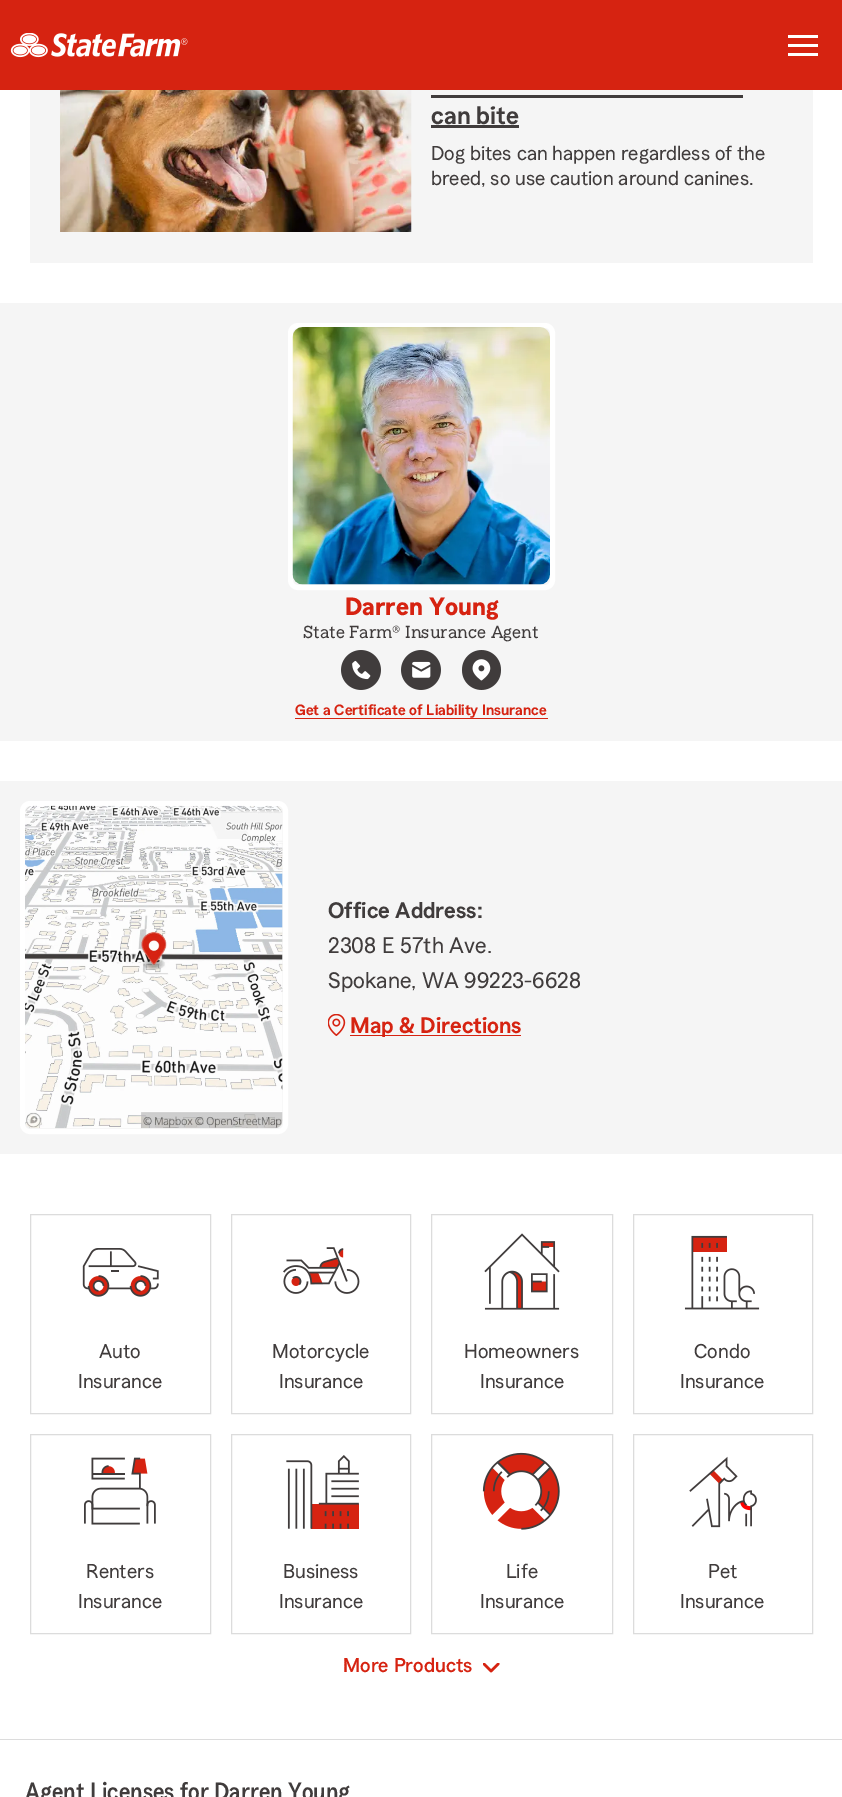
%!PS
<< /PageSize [842 1797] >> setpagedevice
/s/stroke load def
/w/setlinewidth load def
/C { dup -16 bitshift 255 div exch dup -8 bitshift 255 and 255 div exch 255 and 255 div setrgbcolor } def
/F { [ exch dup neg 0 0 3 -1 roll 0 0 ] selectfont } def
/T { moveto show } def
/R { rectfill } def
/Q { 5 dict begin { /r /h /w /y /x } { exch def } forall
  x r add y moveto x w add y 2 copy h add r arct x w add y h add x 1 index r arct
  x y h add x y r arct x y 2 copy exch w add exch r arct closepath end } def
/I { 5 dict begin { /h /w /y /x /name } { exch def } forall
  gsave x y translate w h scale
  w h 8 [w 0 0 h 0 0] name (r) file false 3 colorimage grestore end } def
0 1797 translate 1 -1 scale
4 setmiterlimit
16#FFFFFF C
0 0 842 1797 R
16#D62311 C
0 0 842 90 R
(1.rgb) 10 33 178 25 I
16#FFFFFF C
788 35 30 3 R
788 44 30 3 R
788 53 30 3 R
16#F5F5F5 C
30 90 783 173 R
(2.rgb) 60 90 352 142 I
/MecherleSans-SemiBold 25 F
16#403C3C C
(can bite) 431 124 T
431 95 312 3 R
431 125 88 3 R
/MecherleSans-Regular 20 F
(Dog bites can happen regardless of the) 431 160 T
(breed, so use caution around canines.) 431 185 T
16#F5F5F5 C
0 303 842 438 R
16#FFFFFF C
5 w
290.5 325.5 262 262 7.5 Q s
(3.rgb) 292 327 258 258 I
/MecherleSans-Bold 25 F
16#D62311 C
(Darren Young) 345 615 T
/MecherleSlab-Regular 17.5 F
16#403C3C C
(State Farm® Insurance Agent) 303 638 T
(4.rgb) 341 650 40 40 I
(5.rgb) 401 650 40 40 I
(6.rgb) 462 650 39 40 I
/MecherleSans-SemiBold 15 F
16#D62311 C
(Get a Certificate of Liability Insurance) 295 715 T
295 718 253 1 R
16#F5F5F5 C
0 781 842 373 R
16#FFFFFF C
22.5 803.5 263 328 7.5 Q s
(7.rgb) 25 805 258 324 I
/MecherleSans-SemiBold 22.5 F
16#403C3C C
(Office Address:) 328 918 T
/MecherleSans-Regular 22.5 F
(2308 E 57th Ave.) 328 953 T
(Spokane, WA 99223-6628) 328 988 T
(8.rgb) 328 1014 18 22 I
16#D62311 C
350 1035 171 1 R
/MecherleSans-SemiBold 22.5 F
(Map & Directions) 350 1033 T
16#DCDCDC C
1 w
30.5 1214.5 180 199 rectstroke
(9.rgb) 82 1248 77 49 I
/MecherleSans-Regular 20 F
16#403C3C C
(Auto) 99 1358 T
(Insurance) 78 1388 T
16#DCDCDC C
231.5 1214.5 179 199 rectstroke
(10.rgb) 283 1247 77 47 I
16#403C3C C
(Motorcycle) 272 1358 T
(Insurance) 279 1388 T
16#DCDCDC C
431.5 1214.5 181 199 rectstroke
(11.rgb) 484 1233 76 77 I
16#403C3C C
(Homeowners) 464 1358 T
(Insurance) 480 1388 T
16#DCDCDC C
633.5 1214.5 179 199 rectstroke
(12.rgb) 684 1235 76 75 I
16#403C3C C
(Condo) 694 1358 T
(Insurance) 680 1388 T
16#DCDCDC C
30.5 1434.5 180 199 rectstroke
(13.rgb) 84 1457 72 68 I
16#403C3C C
(Renters) 86 1578 T
(Insurance) 78 1608 T
16#DCDCDC C
231.5 1434.5 179 199 rectstroke
(14.rgb) 286 1455 73 74 I
16#403C3C C
(Business) 283 1578 T
(Insurance) 279 1608 T
16#DCDCDC C
431.5 1434.5 181 199 rectstroke
(15.rgb) 482 1452 78 78 I
16#403C3C C
(Life) 506 1578 T
(Insurance) 480 1608 T
16#DCDCDC C
633.5 1434.5 179 199 rectstroke
(16.rgb) 689 1456 68 72 I
16#403C3C C
(Pet) 708 1578 T
(Insurance) 680 1608 T
/MecherleSans-Medium 20 F
16#D62311 C
(More Products) 343 1672 T
(17.rgb) 483 1663 17 10 I
16#DCDCDC C
0 1739 842 1 R
/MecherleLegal-Medium 25 F
16#403C3C C
(Agent Licenses for Darren Young) 25 1800 T
showpage
